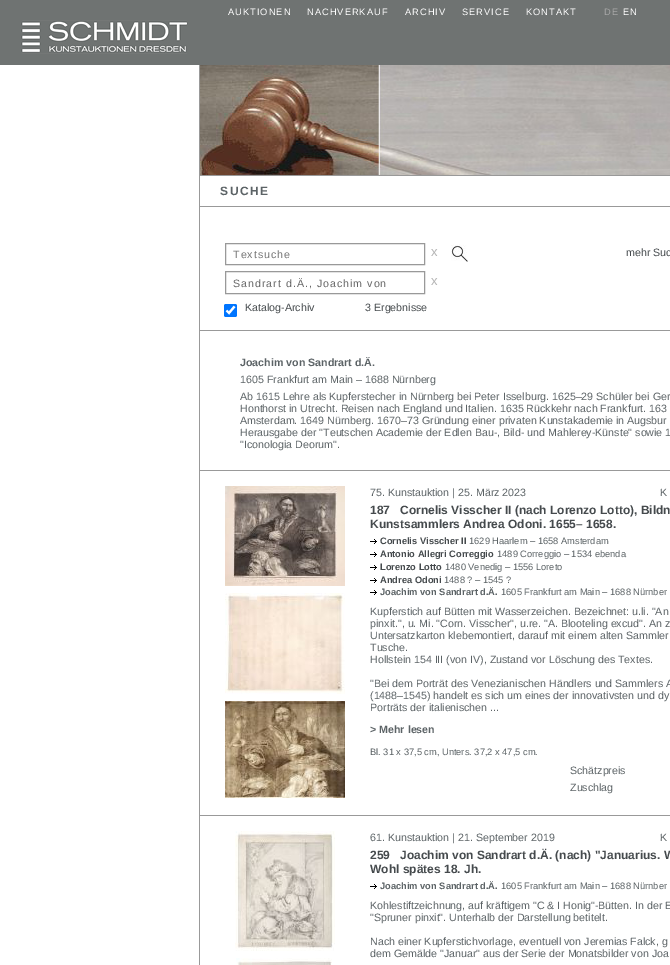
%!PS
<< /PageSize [670 965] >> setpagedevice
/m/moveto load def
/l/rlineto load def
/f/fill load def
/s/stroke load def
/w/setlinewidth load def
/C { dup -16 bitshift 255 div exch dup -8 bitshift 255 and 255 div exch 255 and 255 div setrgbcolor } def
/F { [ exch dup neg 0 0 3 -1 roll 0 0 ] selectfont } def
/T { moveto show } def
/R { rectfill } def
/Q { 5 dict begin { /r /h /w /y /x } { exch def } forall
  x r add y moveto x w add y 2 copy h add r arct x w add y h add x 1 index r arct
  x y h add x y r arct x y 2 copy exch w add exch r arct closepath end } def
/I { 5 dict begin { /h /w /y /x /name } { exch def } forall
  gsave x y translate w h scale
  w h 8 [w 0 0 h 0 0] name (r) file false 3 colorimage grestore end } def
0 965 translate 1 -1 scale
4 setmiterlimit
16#FFFFFF C
0 0 670 965 R
16#6F7372 C
0 0 670 65 R
/LiberationSans-Regular 9.3 F
16#FFFFFF C
228 15 m 1 0 (AUKTIONEN) ashow
307 15 m 1 0 (NACHVERKAUF) ashow
405 15 m 1 0 (ARCHIV) ashow
462 15 m 1 0 (SERVICE) ashow
526 15 m 1 0 (KONTAKT) ashow
16#A6A6A6 C
604 15 m 1 0 (DE) ashow
16#FFFFFF C
623 15 m 1 0 (EN) ashow
(1.rgb) 21 20 167 34 I
16#999999 C
199 65 1 900 R
200 175 470 1 R
(2.rgb) 200 65 470 110 I
200 206 470 1 R
/LiberationSans-Bold 12 F
16#5C6366 C
220 195 m 1.5 0 (SUCHE) ashow
16#999999 C
225.5 243.5 199 21 rectstroke
/LiberationSans-Regular 10.65 F
16#757575 C
233 258 m 1 0 (Textsuche) ashow
/LiberationSans-Regular 13 F
16#B3B3B3 C
(x) 431 256 T
(3.rgb) 451 244 17 18 I
/LiberationSans-Regular 10.65 F
16#454A4D C
(mehr Suc) 626 256 T
16#999999 C
225.5 271.5 199 22 rectstroke
16#666666 C
233 287 m 1 0 (Sandrart d.Ä., Joachim von) ashow
/LiberationSans-Regular 13 F
16#B3B3B3 C
(x) 431 285 T
16#0075FF C
224 304 13 13 2 Q f
16#FFFFFF C
2.1 w
226.5 310.5 m 2.5 2.5 l 5.5 -6.5 l s
/LiberationSans-Regular 10.65 F
16#454A4D C
(Katalog-Archiv) 245 311 T
(3 Ergebnisse) 365 311 T
16#999999 C
200 330 470 1 R
200 470 470 1 R
/LiberationSans-Bold 10.65 F
16#5C6366 C
(Joachim von Sandrart d.Ä.) 240 366 T
/LiberationSans-Regular 10.65 F
(1605 Frankfurt am Main – 1688 Nürnberg) 240 383 T
(Ab 1615 Lehre als Kupferstecher in Nürnberg bei Peter Isselburg. 1625–29 Schüler bei Ger) 240 400 T
(Honthorst in Utrecht. Reisen nach England und Italien. 1635 Rückkehr nach Frankfurt. 163) 240 412 T
(Amsterdam. 1649 Nürnberg. 1670–73 Gründung einer privaten Kunstakademie in Augsbur) 240 424 T
(Herausgabe der "Teutschen Academie der Edlen Bau-, Bild- und Mahlerey-Künste" sowie 1) 240 436 T
("Iconologia Deorum".) 240 448 T
16#999999 C
200 815 470 1 R
(4.rgb) 225 486 120 100 I
(5.rgb) 225 593 120 101 I
(6.rgb) 225 701 120 97 I
16#5C6366 C
(75. Kunstauktion | 25. März 2023) 370 496 T
(K) 660 496 T
/LiberationSans-Bold 12 F
16#454A4D C
(187   Cornelis Visscher II \(nach Lorenzo Lotto\), Bildn) 370 514 T
(Kunstsammlers Andrea Odoni. 1655– 1658.) 370 528 T
(7.rgb) 370 539 7 5 I
/LiberationSans-Bold 9.3 F
(Cornelis Visscher II) 380 544 T
/LiberationSans-Regular 9.3 F
16#5C6366 C
(1629 Haarlem – 1658 Amsterdam) 469 544 T
(7.rgb) 370 552 7 5 I
/LiberationSans-Bold 9.3 F
16#454A4D C
(Antonio Allegri Correggio) 380 557 T
/LiberationSans-Regular 9.3 F
16#5C6366 C
(1489 Correggio – 1534 ebenda) 497 557 T
(7.rgb) 370 565 7 5 I
/LiberationSans-Bold 9.3 F
16#454A4D C
(Lorenzo Lotto) 380 570 T
/LiberationSans-Regular 9.3 F
16#5C6366 C
(1480 Venedig – 1556 Loreto) 445 570 T
(7.rgb) 370 578 7 5 I
/LiberationSans-Bold 9.3 F
16#454A4D C
(Andrea Odoni) 380 583 T
/LiberationSans-Regular 9.3 F
16#5C6366 C
(1488 ? – 1545 ?) 444 583 T
(7.rgb) 370 590 7 5 I
/LiberationSans-Bold 9.3 F
(Joachim von Sandrart d.Ä.) 380 595 T
/LiberationSans-Regular 9.3 F
(1605 Frankfurt am Main – 1688 Nürnber) 501 595 T
/LiberationSans-Regular 10.65 F
(Kupferstich auf Bütten mit Wasserzeichen. Bezeichnet: u.li. "An) 370 615 T
(pinxit.", u. Mi. "Corn. Visscher", u.re. "A. Blooteling excud". An z) 370 627 T
(Untersatzkarton klebemontiert, darauf mit einem alten Sammler) 370 639 T
(Tusche.) 370 651 T
(Hollstein 154 III \(von IV\), Zustand vor Löschung des Textes.) 370 663 T
("Bei dem Porträt des Venezianischen Händlers und Sammlers A) 370 687 T
(\(1488–1545\) handelt es sich um eines der innovativsten und dy) 370 699 T
(Porträts der italienischen ...) 370 711 T
/LiberationSans-Bold 10.65 F
(> Mehr lesen) 370 733 T
/LiberationSans-Regular 9.3 F
(Bl. 31 x 37,5 cm, Unters. 37,2 x 47,5 cm.) 370 755 T
/LiberationSans-Regular 10.65 F
(Schätzpreis) 570 774 T
(Zuschlag) 570 791 T
(8.rgb) 235 831 100 120 I
(9.rgb) 236 958 96 7 I
(61. Kunstauktion | 21. September 2019) 370 841 T
(K) 660 841 T
/LiberationSans-Bold 12 F
16#454A4D C
(259   Joachim von Sandrart d.Ä. \(nach\) "Januarius. W) 370 859 T
(Wohl spätes 18. Jh.) 370 873 T
(7.rgb) 370 884 7 5 I
/LiberationSans-Bold 9.3 F
16#5C6366 C
(Joachim von Sandrart d.Ä.) 380 889 T
/LiberationSans-Regular 9.3 F
(1605 Frankfurt am Main – 1688 Nürnber) 501 889 T
/LiberationSans-Regular 10.65 F
(Kohlestiftzeichnung, auf kräftigem "C & I Honig"-Bütten. In der E) 370 909 T
("Spruner pinxit". Unterhalb der Darstellung betitelt.) 370 921 T
(Nach einer Kupferstichvorlage, eventuell von Jeremias Falck, g) 370 945 T
(dem Gemälde "Januar" aus der Serie der Monatsbilder von Joa) 370 957 T
showpage
